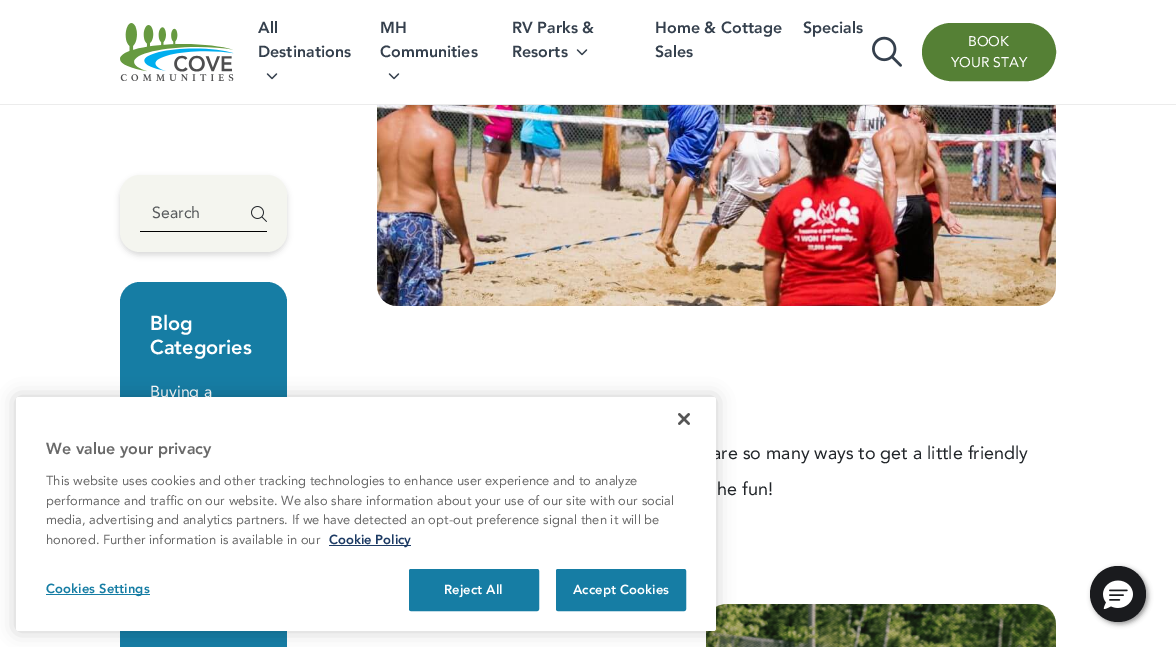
%!PS
<< /PageSize [1176 647] /PageUsesTransparency true >> setpagedevice
/m/moveto load def
/f/fill load def
/s/stroke load def
/q/gsave load def
/Q_/grestore load def
/w/setlinewidth load def
/C { dup -16 bitshift 255 div exch dup -8 bitshift 255 and 255 div exch 255 and 255 div setrgbcolor } def
/F { [ exch dup neg 0 0 3 -1 roll 0 0 ] selectfont } def
/T { moveto show } def
/R { rectfill } def
/A { dup .setfillconstantalpha .setstrokeconstantalpha } def
/O { newpath 0 360 arc closepath } def
/Q { 5 dict begin { /r /h /w /y /x } { exch def } forall
  x r add y moveto x w add y 2 copy h add r arct x w add y h add x 1 index r arct
  x y h add x y r arct x y 2 copy exch w add exch r arct closepath end } def
/S { 12 dict begin { /a /b /q /h /w /y /x } { exch def } forall gsave /was 0 def
  9 -2 -9 { dup b mul 4 div /e exch def 1 sub .425 mul 2.718 exch exp 1 add a .99 .min exch div /now exch def
    1 1 now sub 1 was sub div sub A /was now def
    w h .min e 2 mul add 0 gt { x e sub y e sub w e 2 mul add h e 2 mul add
      q e add b .6 mul add w h .min 2 div e add .min 0 .max Q fill } if } for grestore end } def
/I { 5 dict begin { /h /w /y /x /name } { exch def } forall
  gsave x y translate w h scale
  w h 8 [w 0 0 h 0 0] name (r) file false 3 colorimage grestore end } def
0 .pushpdf14devicefilter
0 647 translate 1 -1 scale
4 setmiterlimit
16#FFFFFF C
0 0 1176 647 R
16#ECECEC C
0 104 1176 1 R
(1.rgb) 120 23 114 58 I
/Avenir-Black 16 F
16#35404D C
(All) 258 33 T
(Destinations) 258 57 T
(2.rgb) 266 73 12 7 I
(MH) 380 33 T
(Communities) 380 57 T
(2.rgb) 388 73 12 7 I
(RV Parks &) 512 33 T
(Resorts) 512 57 T
(2.rgb) 576 49 12 7 I
(Home & Cottage) 655 33 T
(Sales) 655 57 T
(Specials) 803 33 T
(3.rgb) 872 36 30 31 I
16#558035 C
923 24 132 56 28 Q q f Q_
2 w
s
/Avenir-Regular 14 F
16#FFFFFF C
(BOOK) 968 46 T
(YOUR STAY) 951 67 T
16#000000 C
120 178 167 77 20 3 .15 S
16#F4F5EF C
120 175 167 77 20 Q f
16#000000 C
140 231 127 1 R
/Avenir-Regular 16 F
16#56595B C
(Search) 152 218 T
(4.rgb) 251 206 16 16 I
16#167DA4 C
120 282 167 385 20 Q f
/Avenir-Black 20 F
16#FFFFFF C
(Blog) 150 330 T
(Categories) 150 354 T
/Avenir-Regular 16 F
(Buying a) 150 397 T
(5.rgb) 377 105 679 201 I
/Avenir-Regular 18 F
16#212529 C
(are so many ways to get a little friendly) 712 459 T
(he fun!) 717 495 T
(6.rgb) 706 604 350 43 I
16#000000 C
16 397 700 234 2.5 9 .2 S
16#FFFFFF C
16 397 700 234 2.5 Q f
(7.rgb) 678 413 12 12 I
/Avenir-Black 16 F
16#696969 C
(We value your privacy) 46 454 T
/Avenir-Regular 13 F
(This website uses cookies and other tracking technologies to enhance user experience and to analyze) 46 485 T
(performance and traffic on our website. We also share information about your use of our site with our social) 46 505 T
(media, advertising and analytics partners. If we have detected an opt-out preference signal then it will be) 46 524 T
(honored. Further information is available in our) 46 544 T
16#1D3B64 C
329 545 82 1 R
/Avenir-Black 13 F
(Cookie Policy) 329 544 T
16#167DA4 C
46 594 104 1 R
46 593 m .1 0 (Cookies Settings) ashow
409.5 569.5 129 41 1.5 Q q f Q_
1 w
s
16#FFFFFF C
444 594 m .1 0 (Reject All) ashow
16#167DA4 C
556.5 569.5 129 41 1.5 Q q f Q_
s
16#FFFFFF C
573 594 m .1 0 (Accept Cookies) ashow
16#2D2D2D C
1092 568 56 56 28 2.5 .5 S
16#1A1B1E C
1118 594 28 O f
(8.rgb) 1103 580 30 29 I
.poppdf14devicefilter showpage
